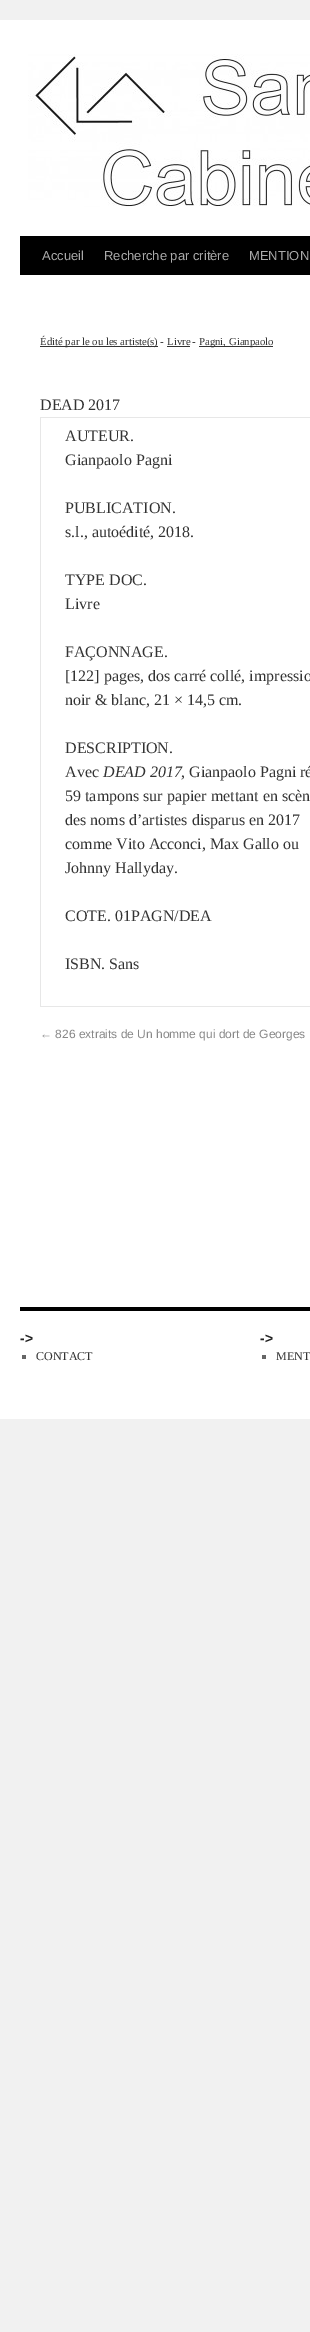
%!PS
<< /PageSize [310 2332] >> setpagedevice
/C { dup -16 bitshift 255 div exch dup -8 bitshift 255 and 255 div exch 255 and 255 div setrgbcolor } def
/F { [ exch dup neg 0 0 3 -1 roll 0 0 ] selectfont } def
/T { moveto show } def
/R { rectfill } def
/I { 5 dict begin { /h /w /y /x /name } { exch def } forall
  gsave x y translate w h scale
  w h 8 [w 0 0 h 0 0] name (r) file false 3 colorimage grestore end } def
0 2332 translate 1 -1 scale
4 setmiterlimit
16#F1F1F1 C
0 0 310 2332 R
16#FFFFFF C
0 20 310 1399 R
16#000000 C
20 236 290 39 R
(1.rgb) 28 54 282 153 I
/LiberationSans-Regular 13 F
16#AAAAAA C
(Accueil) 42 260 T
(Recherche par critère) 104 260 T
(MENTION) 249 260 T
16#333333 C
40 346 118 1 R
/LiberationSerif-Regular 10.75 F
(Édité par le ou les artiste\(s\)) 40 345 T
16#000000 C
(-) 160 345 T
16#333333 C
(Livre) 167 345 T
167 346 23 1 R
16#000000 C
(-) 192 345 T
16#333333 C
199 346 74 1 R
(Pagni, Gianpaolo) 199 345 T
/LiberationSerif-Regular 16 F
(DEAD 2017) 40 410 T
16#E7E7E7 C
40 417 270 1 R
40 1006 270 1 R
40 417 1 590 R
16#333333 C
(AUTEUR.) 65 441 T
(Gianpaolo Pagni) 65 465 T
(PUBLICATION.) 65 513 T
(s.l., autoédité, 2018.) 65 537 T
(TYPE DOC.) 65 585 T
(Livre) 65 609 T
(FAÇONNAGE.) 65 657 T
([122] pages, dos carré collé, impressio) 65 681 T
(noir & blanc, 21 × 14,5 cm.) 65 705 T
(DESCRIPTION.) 65 753 T
(Avec) 65 777 T
/LiberationSerif-Italic 16 F
(DEAD 2017) 103 777 T
/LiberationSerif-Regular 16 F
(, Gianpaolo Pagni ré) 181 777 T
(59 tampons sur papier mettant en scèn) 65 801 T
(des noms d’artistes disparus en 2017) 65 825 T
(comme Vito Acconci, Max Gallo ou) 65 849 T
(Johnny Hallyday.) 65 873 T
(COTE. 01PAGN/DEA) 65 921 T
(ISBN. Sans) 65 969 T
/LiberationSans-Regular 12 F
16#888888 C
(← 826 extraits de Un homme qui dort de Georges) 40 1038 T
16#000000 C
20 1307 290 4 R
/LiberationSans-Bold 14 F
16#222222 C
(->) 20 1343 T
16#666666 C
22 1355 4 4 R
/LiberationSerif-Regular 12 F
16#333333 C
(CONTACT) 36 1360 T
/LiberationSans-Bold 14 F
16#222222 C
(->) 260 1343 T
16#666666 C
262 1355 4 4 R
/LiberationSerif-Regular 12 F
16#333333 C
(MENT) 276 1360 T
showpage
